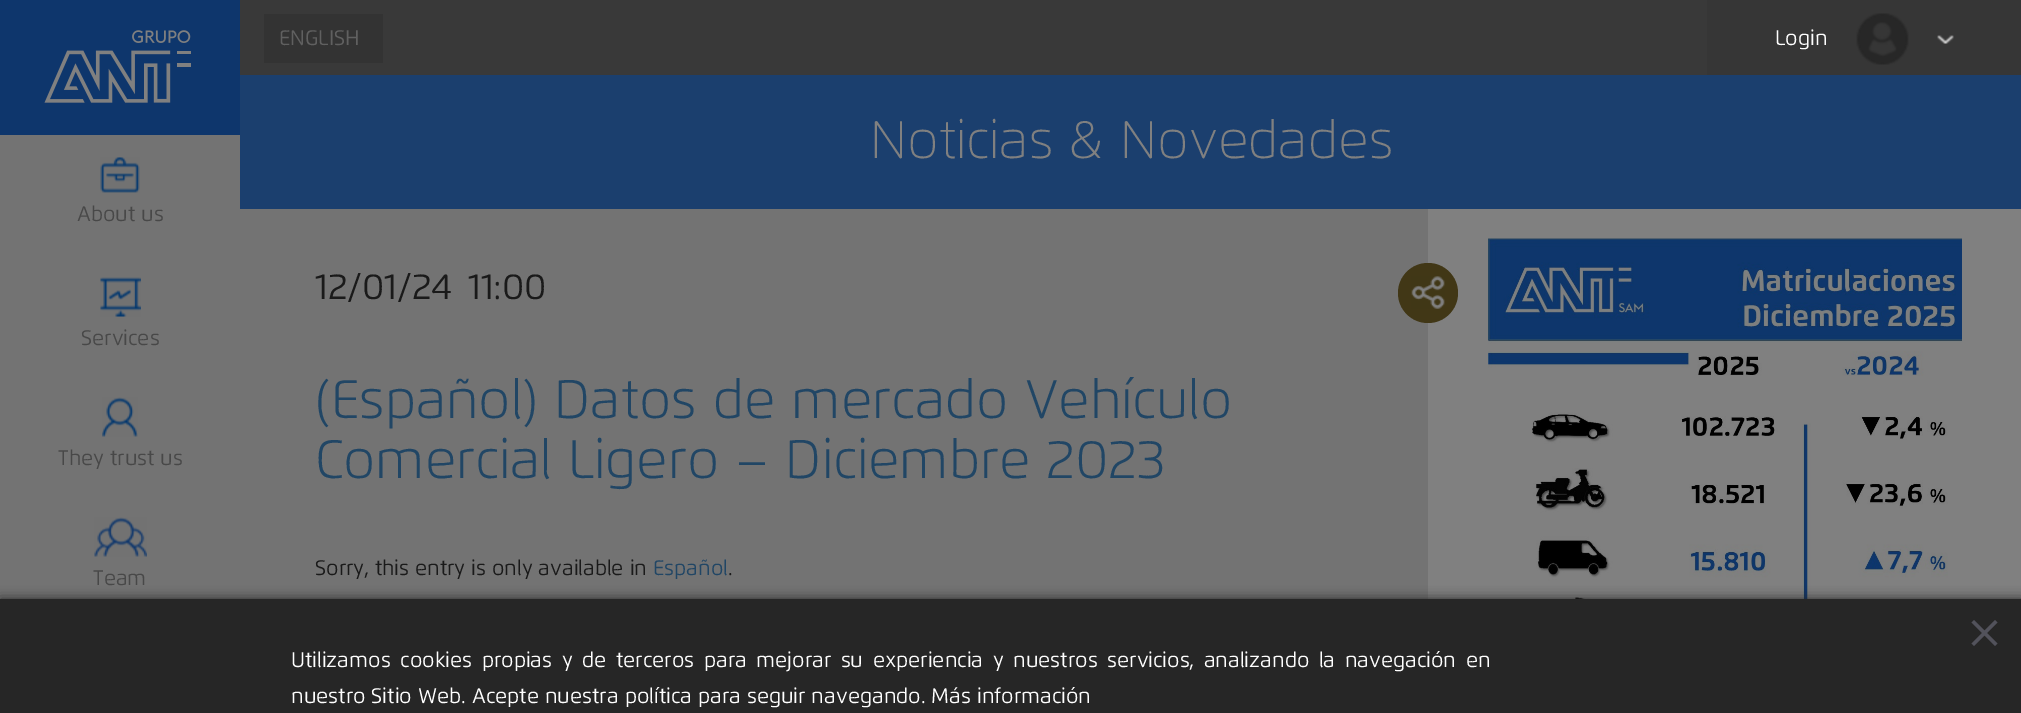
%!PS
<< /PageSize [2021 713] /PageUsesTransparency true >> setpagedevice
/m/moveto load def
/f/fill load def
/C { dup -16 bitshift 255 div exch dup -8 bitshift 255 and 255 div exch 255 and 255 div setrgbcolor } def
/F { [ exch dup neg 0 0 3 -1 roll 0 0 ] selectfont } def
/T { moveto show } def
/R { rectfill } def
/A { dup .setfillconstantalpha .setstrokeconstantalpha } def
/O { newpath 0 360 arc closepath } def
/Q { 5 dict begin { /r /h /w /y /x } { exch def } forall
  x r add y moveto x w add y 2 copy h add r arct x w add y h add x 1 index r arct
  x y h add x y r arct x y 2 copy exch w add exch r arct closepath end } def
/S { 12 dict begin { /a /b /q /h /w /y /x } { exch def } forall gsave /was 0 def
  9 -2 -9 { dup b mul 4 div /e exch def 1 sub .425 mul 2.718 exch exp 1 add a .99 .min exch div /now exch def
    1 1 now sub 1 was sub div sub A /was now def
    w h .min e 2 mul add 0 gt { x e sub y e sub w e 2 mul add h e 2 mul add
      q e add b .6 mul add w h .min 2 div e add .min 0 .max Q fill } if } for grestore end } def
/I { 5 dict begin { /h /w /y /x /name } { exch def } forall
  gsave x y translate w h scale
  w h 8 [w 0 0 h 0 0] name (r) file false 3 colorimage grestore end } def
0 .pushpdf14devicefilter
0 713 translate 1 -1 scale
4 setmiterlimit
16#1B3F6E C
0 0 2021 713 R
(1.rgb) 0 0 240 135 I
16#393939 C
240 0 1467 75 R
16#333333 C
264 14 119 49 R
/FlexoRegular-Regular 21 F
16#606060 C
(ENGLISH) 279 45 T
16#363636 C
1707 0 314 75 R
16#FFFFFF C
(Login) 1775 45 T
(2.rgb) 1856 13 53 52 I
(3.rgb) 1937 35 17 9 I
16#737373 C
0 135 240 464 R
(4.rgb) 100 157 40 36 I
16#484848 C
(About us) 77 221 T
(5.rgb) 100 277 41 40 I
(Services) 81 345 T
(6.rgb) 102 397 36 40 I
(They trust us) 58 465 T
(7.rgb) 94 517 53 40 I
(Team) 93 585 T
/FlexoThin-Thin 52.5 F
16#808080 C
(Noticias & Novedades) 870 158 T
16#737373 C
240 209 1188 390 R
/FlexoRegular-Regular 36 F
16#1A1A1A C
(12/01/24) 315 299 T
(11:00) 468 299 T
16#808080 C
1428 209 593 390 R
16#413716 C
1428 293 30 O f
(8.rgb) 1411 276 34 33 I
/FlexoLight-Light 54 F
16#214665 C
(\(Español\) Datos de mercado Vehículo) 315 418 T
(Comercial Ligero – Diciembre 2023) 315 478 T
/FlexoRegular-Regular 21 F
16#1A1A1A C
(Sorry, this entry is only available in) 315 575 T
16#214665 C
(Español) 653 575 T
16#1A1A1A C
(.) 728 575 T
(9.rgb) 1488 238 474 361 I
16#262626 C
0 599 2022 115 0 6 1 S
0 599 2021 114 R
(10.rgb) 1971 620 27 26 I
16#FFFFFF C
291 667 m 3.6 0 32 (Utilizamos cookies propias y de terceros para mejorar su experiencia y nuestros servicios, analizando la navegación en) widthshow
(nuestro Sitio Web. Acepte nuestra política para seguir navegando. Más información) 291 703 T
.poppdf14devicefilter showpage
